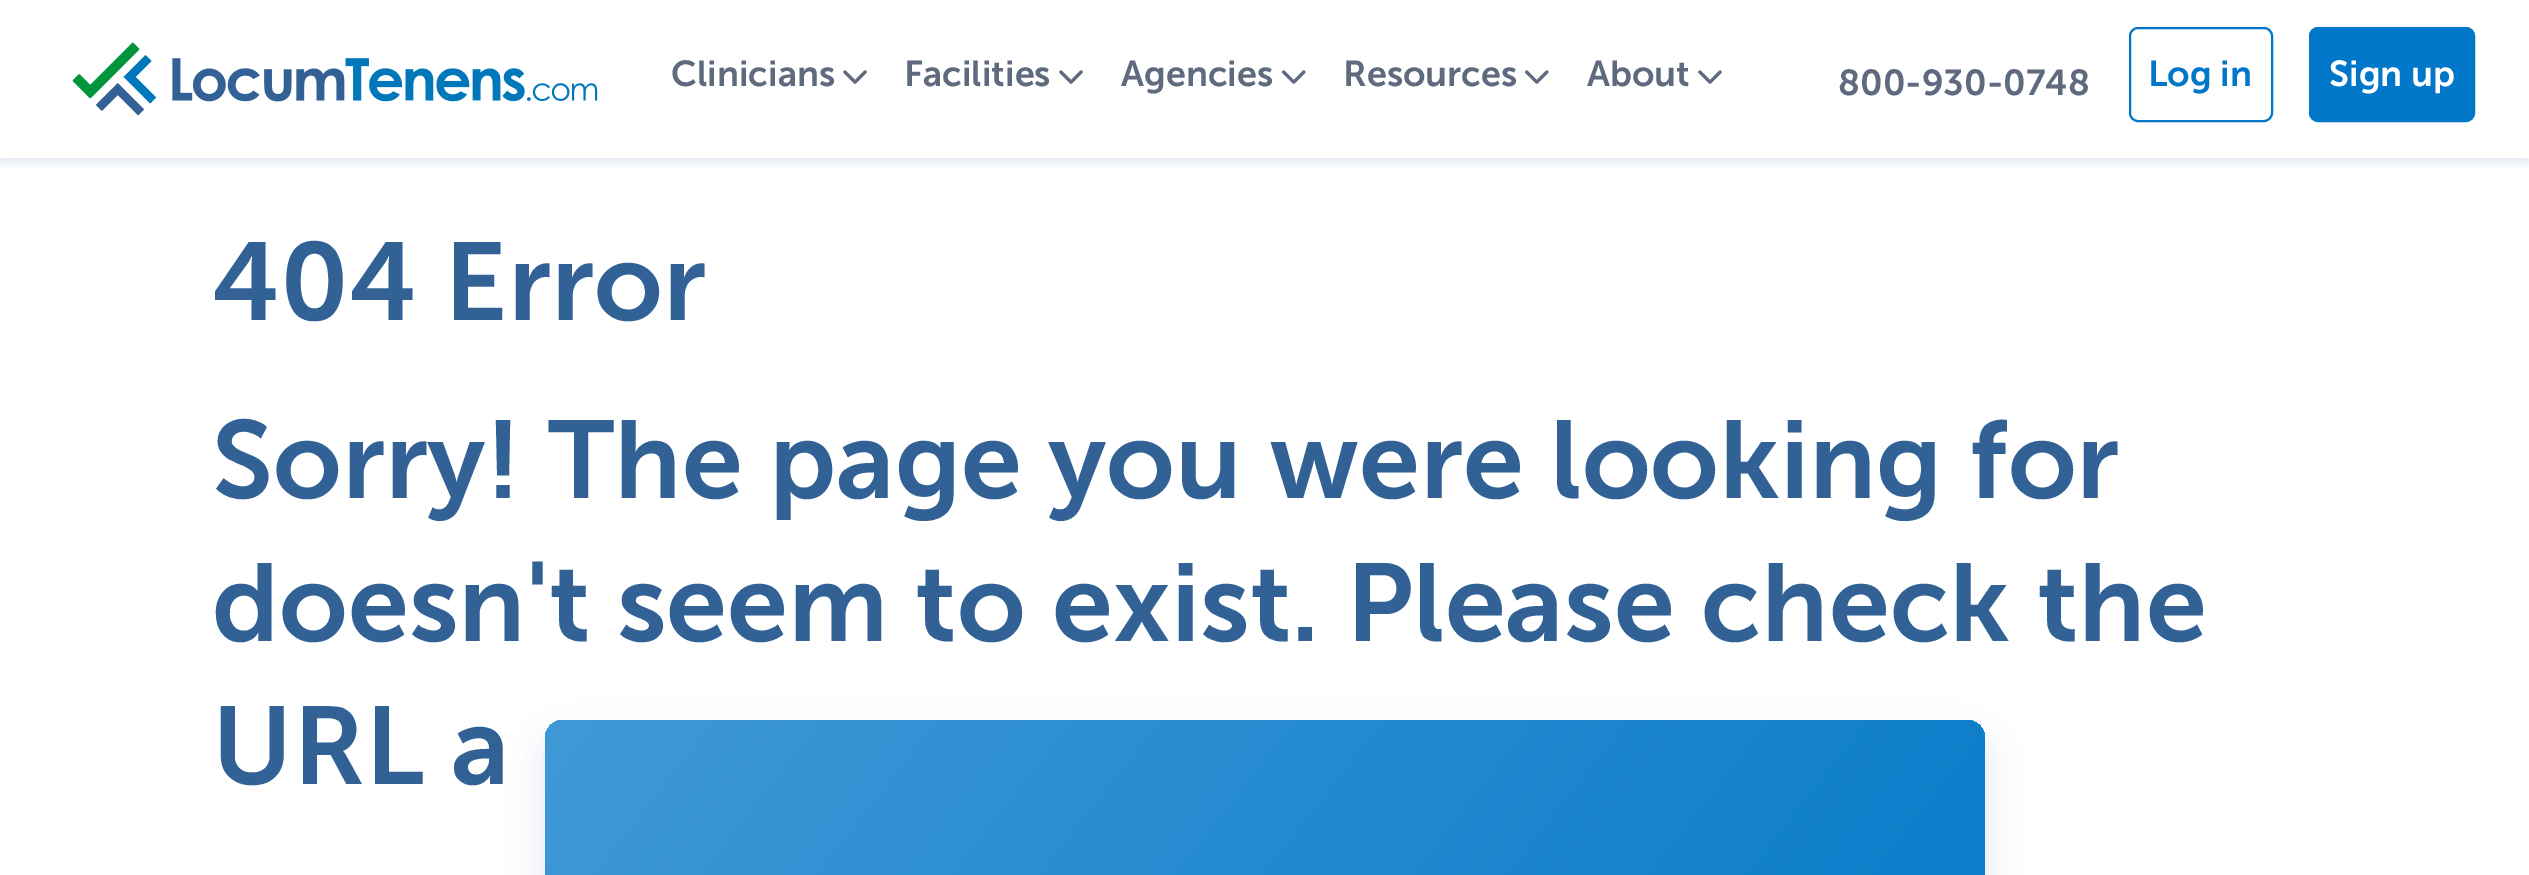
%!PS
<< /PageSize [2529 875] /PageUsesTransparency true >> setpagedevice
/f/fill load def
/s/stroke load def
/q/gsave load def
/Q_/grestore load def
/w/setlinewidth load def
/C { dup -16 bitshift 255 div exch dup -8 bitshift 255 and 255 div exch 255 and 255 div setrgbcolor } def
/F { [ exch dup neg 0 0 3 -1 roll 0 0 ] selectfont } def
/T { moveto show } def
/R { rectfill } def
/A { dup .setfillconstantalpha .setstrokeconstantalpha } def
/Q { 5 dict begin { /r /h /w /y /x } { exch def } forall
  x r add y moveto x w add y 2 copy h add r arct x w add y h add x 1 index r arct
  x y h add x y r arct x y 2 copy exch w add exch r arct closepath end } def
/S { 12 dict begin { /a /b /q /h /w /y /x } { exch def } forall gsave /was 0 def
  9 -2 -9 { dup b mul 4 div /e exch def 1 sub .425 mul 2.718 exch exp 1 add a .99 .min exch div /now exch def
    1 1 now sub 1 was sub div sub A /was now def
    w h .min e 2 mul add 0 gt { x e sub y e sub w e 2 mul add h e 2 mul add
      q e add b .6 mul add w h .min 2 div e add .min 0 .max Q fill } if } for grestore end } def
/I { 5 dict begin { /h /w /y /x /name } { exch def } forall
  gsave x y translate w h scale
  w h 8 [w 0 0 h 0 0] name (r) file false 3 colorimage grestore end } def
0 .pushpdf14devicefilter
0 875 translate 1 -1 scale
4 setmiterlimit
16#FFFFFF C
0 0 2529 875 R
16#326295 C
0 -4 2529 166 0 4.5 .15 S
16#FFFFFF C
0 0 2529 158 R
(1.rgb) 72 42 526 74 I
/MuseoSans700-SemiBold 36 F
16#5F6A7E C
(Clinicians) 671 86 T
(2.rgb) 843 70 24 14 I
(Facilities) 904 86 T
(2.rgb) 1059 70 24 14 I
(Agencies) 1121 86 T
(3.rgb) 1282 70 24 14 I
(Resources) 1343 86 T
(3.rgb) 1525 70 24 14 I
(About) 1587 86 T
(2.rgb) 1698 70 24 14 I
(800-930-0748) 1838 95 T
16#0077C8 C
2 w
2130 28 142 93 8 Q s
(Log in) 2148 86 T
2310 28 164 93 8 Q q f Q_
s
16#FFFFFF C
(Sign up) 2329 86 T
/MuseoSans700-SemiBold 109.9 F
16#326295 C
(404 Error) 212 320 T
(Sorry! The page you were looking for) 212 498 T
(doesn't seem to exist. Please check the) 212 641 T
(URL a) 212 784 T
545 738 1440 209 18 18 .15 S
q 545 720 1440 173 18 Q clip newpath
<< /ShadingType 2 /ColorSpace /DeviceRGB /Coords [1846 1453 683 543] /Extend [true true] /Function << /FunctionType 2 /Domain [0 1] /C0 [0 .467 .784] /C1 [.251 .6 .839] /N 1 >> >> shfill Q_
.poppdf14devicefilter showpage
